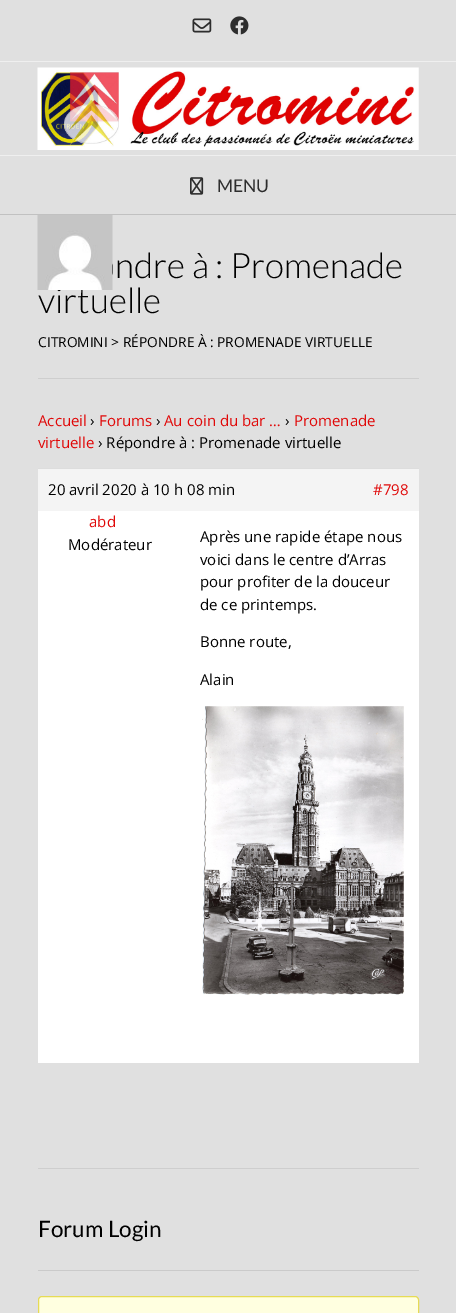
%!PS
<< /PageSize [456 1313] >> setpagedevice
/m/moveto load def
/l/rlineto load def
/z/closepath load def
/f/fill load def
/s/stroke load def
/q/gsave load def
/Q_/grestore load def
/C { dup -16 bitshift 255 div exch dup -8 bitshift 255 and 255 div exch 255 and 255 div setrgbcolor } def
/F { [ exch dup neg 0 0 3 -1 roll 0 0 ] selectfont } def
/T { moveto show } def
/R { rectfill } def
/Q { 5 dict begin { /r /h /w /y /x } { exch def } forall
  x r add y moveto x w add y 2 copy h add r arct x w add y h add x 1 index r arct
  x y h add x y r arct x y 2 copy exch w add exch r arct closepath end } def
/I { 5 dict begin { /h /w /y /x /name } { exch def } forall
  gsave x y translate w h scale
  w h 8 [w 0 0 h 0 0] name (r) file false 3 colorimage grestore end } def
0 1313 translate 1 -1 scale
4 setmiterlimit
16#E0E0E0 C
0 0 456 1313 R
16#C1C1C1 C
0 214 456 1 R
16#EFEFEF C
0 61 456 1 R
(1.rgb) 192 18 20 15 I
(2.rgb) 230 16 19 19 I
(3.rgb) 37 67 382 83 I
0 155 456 1 R
(4.rgb) 190 177 14 18 I
/Lato-Regular 17.5 F
16#2D2D2D C
(MENU) 217 192 T
16#CECECE C
38 378 381 1 R
/Lato-Light 35 F
16#000000 C
(ndre à : Promenade) 115 278 T
(virtuelle) 38 313 T
/OpenSans-Regular 13.75 F
(CITROMINI > RÉPONDRE À : PROMENADE VIRTUELLE) 38 347 T
/OpenSans-Regular 15 F
16#E00808 C
(Accueil) 38 426 T
16#000000 C
(›) 90 426 T
16#E00808 C
(Forums) 99 426 T
16#000000 C
(›) 156 426 T
16#E00808 C
(Au coin du bar …) 164 426 T
16#000000 C
(›) 285 426 T
16#E00808 C
(Promenade) 294 426 T
(virtuelle) 38 448 T
16#000000 C
(› Répondre à : Promenade virtuelle) 98 448 T
16#F4F4F4 C
38 469 381 42 R
16#DDDDDD C
38 468 381 1 R
16#000000 C
(20 avril 2020 à 10 h 08 min) 48 495 T
16#E00808 C
(#798) 373 495 T
16#FFFFFF C
38 511 381 552 R
(5.rgb) 37 215 76 75 I
16#E00808 C
(abd) 89 527 T
16#000000 C
(Modérateur) 68 550 T
(Après une rapide étape nous) 200 542 T
(voici dans le centre d’Arras) 200 565 T
(pour profiter de la douceur) 200 587 T
(de ce printemps.) 200 610 T
(Bonne route,) 200 647 T
(Alain) 200 685 T
(6.rgb) 202 706 202 289 I
16#CECECE C
38 1168 m 0 1 l 381 0 l 0 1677 l 0 -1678 l z f
16#CACACA C
38 1270 381 1 R
/Lato-Regular 22.5 F
16#000000 C
(Forum Login) 38 1237 T
16#FFFFE0 C
38.5 1296.5 380 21 3.5 Q q f Q_
16#E6DB55 C
s
showpage
